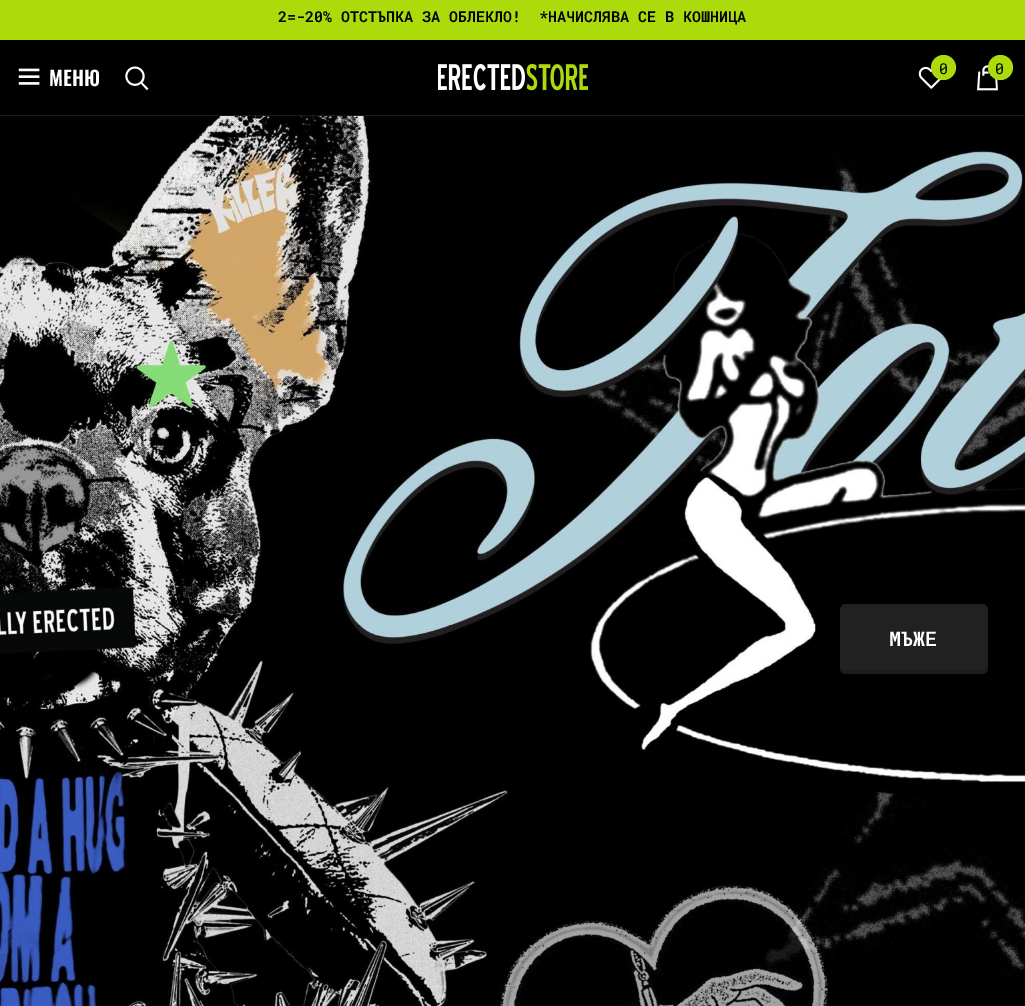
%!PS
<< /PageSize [1025 1006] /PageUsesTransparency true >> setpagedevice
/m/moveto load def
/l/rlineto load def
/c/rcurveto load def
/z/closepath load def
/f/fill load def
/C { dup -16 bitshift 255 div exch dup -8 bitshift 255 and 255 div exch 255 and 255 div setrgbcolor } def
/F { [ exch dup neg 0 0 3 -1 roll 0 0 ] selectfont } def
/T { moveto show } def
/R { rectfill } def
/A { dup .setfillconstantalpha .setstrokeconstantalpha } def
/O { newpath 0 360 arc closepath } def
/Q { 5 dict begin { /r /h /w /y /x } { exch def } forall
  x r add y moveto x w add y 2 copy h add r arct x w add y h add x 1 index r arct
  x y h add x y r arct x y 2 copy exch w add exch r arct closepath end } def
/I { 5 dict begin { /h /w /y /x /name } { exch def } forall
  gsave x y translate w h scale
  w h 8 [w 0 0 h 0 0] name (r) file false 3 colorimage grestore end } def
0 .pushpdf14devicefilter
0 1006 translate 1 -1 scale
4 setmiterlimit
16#FFFFFF C
0 0 1025 1006 R
16#ADDA0B C
0 0 1025 40 R
/RobotoMono-SemiBold 15 F
16#000000 C
(2=-20% ОТСТЪПКА ЗА ОБЛЕКЛО!  *НАЧИСЛЯВА СЕ В КОШНИЦА) 278 22 T
0 40 1025 75 R
16#1A1A1A C
0 115 1025 1 R
(1.rgb) 18 68 22 17 I
/Oswald-SemiBold 20 F
16#FFFFFF C
(МЕНЮ) 49 86 T
(2.rgb) 125 66 24 25 I
(3.rgb) 438 64 150 27 I
(4.rgb) 918 66 24 23 I
16#ADDA0B C
943.5 67.5 12.5 O f
/RobotoMono-Regular 15 F
16#000000 C
(0) 939 74 T
(5.rgb) 977 65 21 26 I
16#ADDA0B C
1000.5 67.5 12.5 O f
16#000000 C
(0) 995 74 T
(6.rgb) 0 116 1025 890 I
16#212121 C
840 604 148 70 6 Q f
0.15 A
16#000000 C
840 665 m 0 3 l 0 3 3 6 6 6 c 136 0 l 3 0 6 -3 6 -6 c 0 -3 l 0 3 -3 6 -7 6 c -135 0 l -3 0 -6 -3 -6 -6 c z f
/RobotoMono-SemiBold 20 F
1 A
16#FFFFFF C
(МЪЖЕ) 889 646 T
.poppdf14devicefilter showpage
